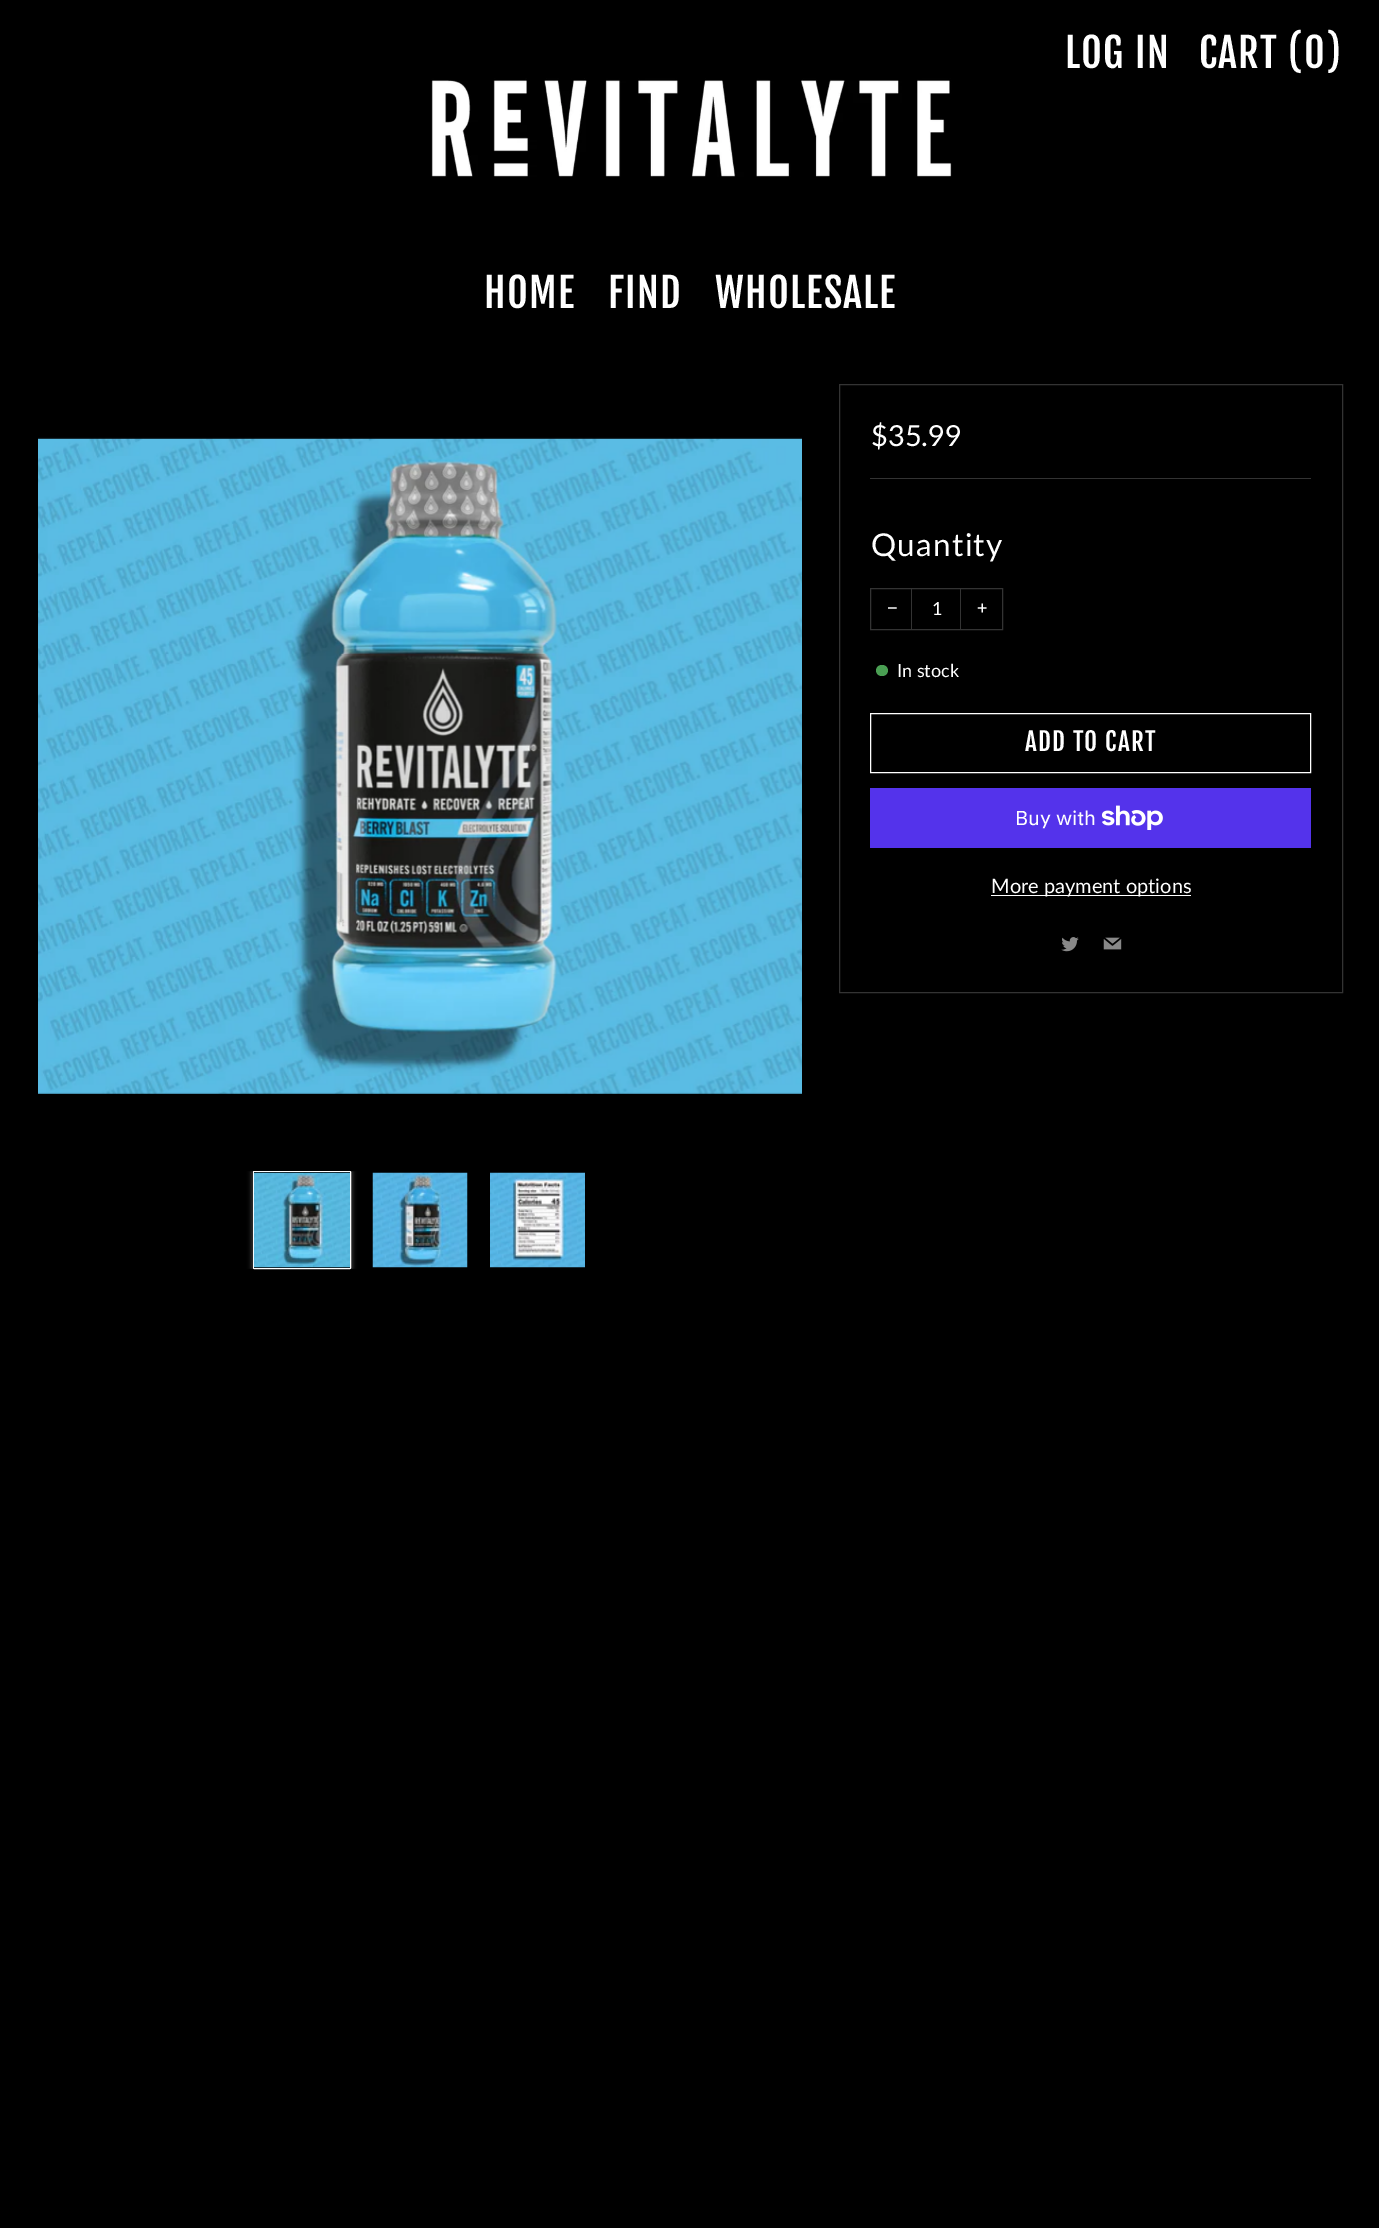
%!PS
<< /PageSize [1379 2228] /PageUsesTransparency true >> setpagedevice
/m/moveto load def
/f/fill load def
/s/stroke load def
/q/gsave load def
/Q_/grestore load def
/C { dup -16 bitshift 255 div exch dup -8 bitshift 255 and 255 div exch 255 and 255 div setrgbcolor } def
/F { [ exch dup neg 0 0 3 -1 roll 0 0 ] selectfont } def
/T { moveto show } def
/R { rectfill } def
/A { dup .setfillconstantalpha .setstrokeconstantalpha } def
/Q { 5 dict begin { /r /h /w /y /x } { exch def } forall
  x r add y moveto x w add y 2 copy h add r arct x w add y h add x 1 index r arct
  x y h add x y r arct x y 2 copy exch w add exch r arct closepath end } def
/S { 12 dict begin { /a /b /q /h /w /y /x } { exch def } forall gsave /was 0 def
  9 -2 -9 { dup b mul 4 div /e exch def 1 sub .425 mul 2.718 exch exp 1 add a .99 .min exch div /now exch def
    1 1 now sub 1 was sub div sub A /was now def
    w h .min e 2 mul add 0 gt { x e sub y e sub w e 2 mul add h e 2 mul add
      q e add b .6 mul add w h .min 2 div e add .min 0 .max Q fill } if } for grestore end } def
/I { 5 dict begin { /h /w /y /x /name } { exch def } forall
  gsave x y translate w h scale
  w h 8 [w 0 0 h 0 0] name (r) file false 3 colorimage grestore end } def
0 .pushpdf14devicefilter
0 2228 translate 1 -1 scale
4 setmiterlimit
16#000000 C
0 0 1379 2228 R
/FjallaOne-Regular 40 F
16#FFFFFF C
1065 68 m 1.25 0 (LOG IN) ashow
1199 68 m 1.25 0 (CART \(0\)) ashow
484 308 m 1.25 0 (HOME) ashow
608 308 m 1.25 0 (FIND) ashow
715 308 m 1.25 0 (WHOLESALE) ashow
(1.rgb) 431 78 521 99 I
(2.rgb) 38 437 764 657 I
q
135 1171 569 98 rectclip
251 1170 102 100 2.5 2 .2 S
Q_
16#000000 C
253.5 1171.5 97 97 .5 Q q f Q_
16#FFFFFF C
s
(3.rgb) 253 1172 97 96 I
(4.rgb) 372 1172 96 96 I
(5.rgb) 490 1172 95 96 I
16#333333 C
839.5 384.5 503 608 rectstroke
/Lato-Regular 29 F
16#FFFFFF C
($35.99) 871 446 T
16#333333 C
870 478 441 1 R
/Lato-Regular 31.5 F
16#FFFFFF C
871 556 m 1.25 0 (Quantity) ashow
16#333333 C
870.5 588.5 132 41 rectstroke
/LiberationSans-Regular 18 F
16#FFFFFF C
(−) 887 614 T
16#333333 C
960 589 1 40 R
911 589 1 40 R
/Lato-Regular 18 F
16#FFFFFF C
(1) 932 615 T
/LiberationSans-Regular 18 F
(+) 977 614 T
16#4A9F53 C
876 665 12 11 5.5 Q f
/Lato-Regular 18 F
16#FFFFFF C
(In stock) 897 677 T
870.5 713.5 440 59 rectstroke
/FjallaOne-Regular 25 F
1025 751 m 1.25 0 (ADD TO CART) ashow
16#5433EB C
870 788 441 60 R
/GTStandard-Regular 20 F
16#FFFFFF C
(Buy with) 1015 825 T
(6.rgb) 1101 805 62 25 I
991 895 200 1 R
/Lato-Regular 20 F
(More payment options) 991 893 T
(7.rgb) 1061 937 18 15 I
(8.rgb) 1103 937 19 13 I
.poppdf14devicefilter showpage
